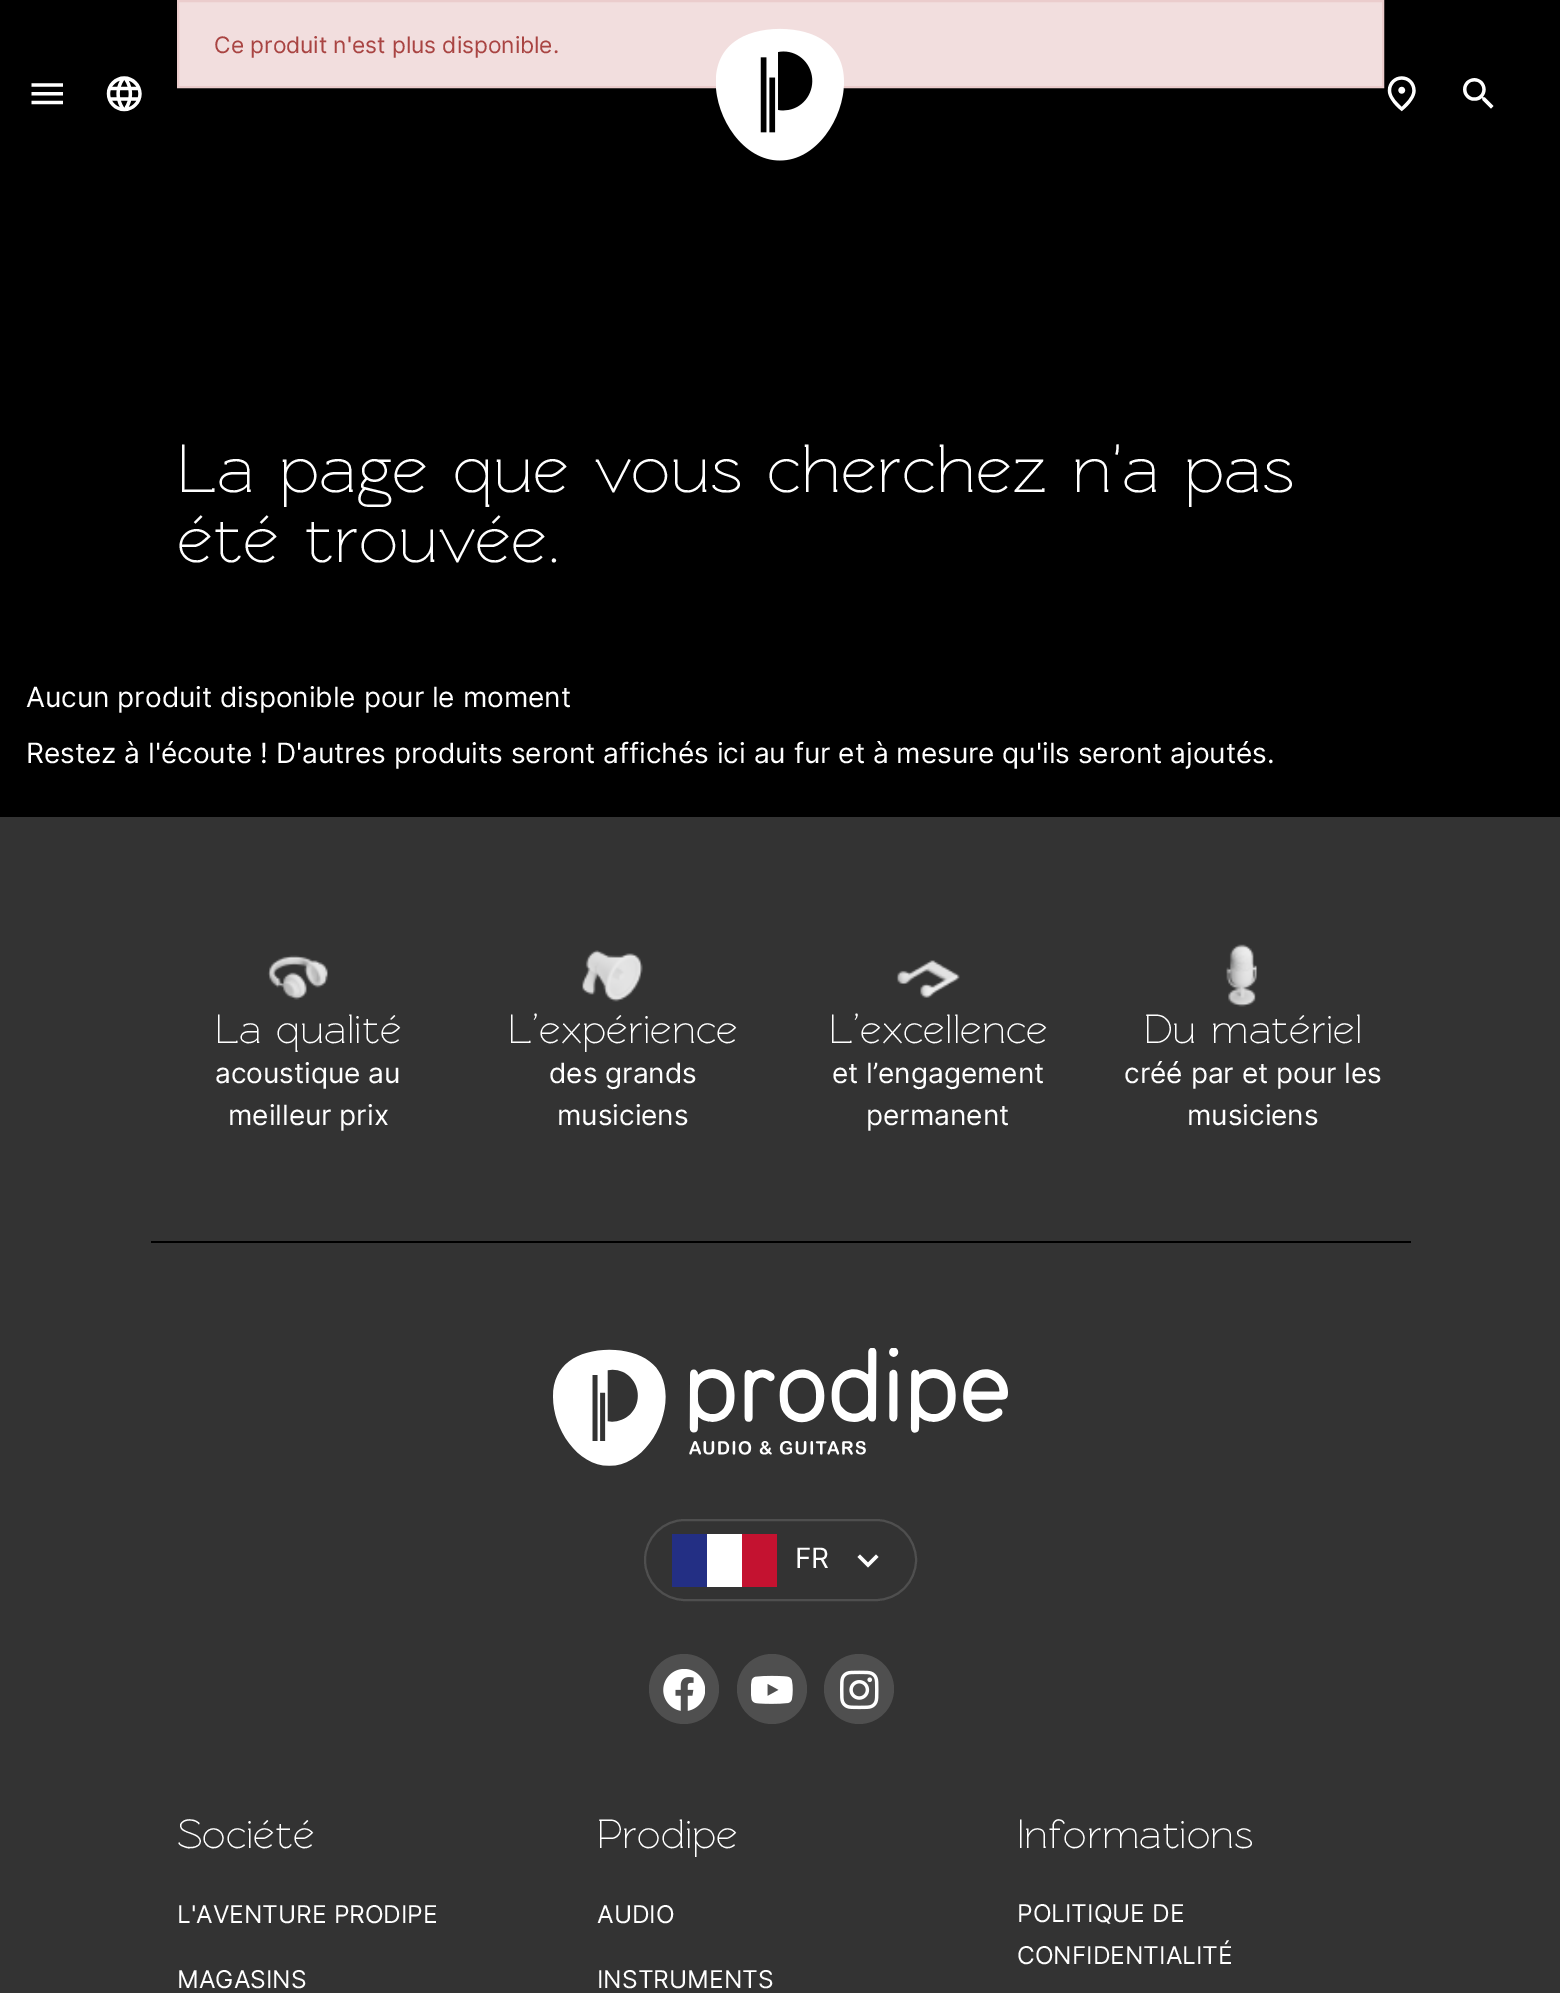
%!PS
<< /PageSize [1560 1993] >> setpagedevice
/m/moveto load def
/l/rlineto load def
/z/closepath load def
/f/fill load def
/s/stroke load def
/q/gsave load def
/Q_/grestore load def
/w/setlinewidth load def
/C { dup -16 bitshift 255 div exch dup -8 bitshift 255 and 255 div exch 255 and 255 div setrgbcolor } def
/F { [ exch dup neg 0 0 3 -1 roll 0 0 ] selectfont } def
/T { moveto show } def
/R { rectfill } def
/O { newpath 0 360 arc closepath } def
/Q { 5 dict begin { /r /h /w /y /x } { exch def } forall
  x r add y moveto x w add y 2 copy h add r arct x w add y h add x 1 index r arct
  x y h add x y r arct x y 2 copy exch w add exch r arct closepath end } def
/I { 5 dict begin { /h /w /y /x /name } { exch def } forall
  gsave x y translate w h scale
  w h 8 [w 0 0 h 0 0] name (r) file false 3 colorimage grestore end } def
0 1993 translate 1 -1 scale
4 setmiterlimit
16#000000 C
0 0 1560 1993 R
16#F2DEDE C
178 1 m 1205 0 l 0 86 l -1205 0 l z q f Q_
16#EBCCCC C
2 w
s
(1.rgb) 716 28 128 133 I
(2.rgb) 31 83 32 22 I
(3.rgb) 106 76 36 36 I
(4.rgb) 1387 76 29 36 I
(5.rgb) 1463 78 31 31 I
/Inter-Regular 22.75 F
16#A94442 C
(Ce produit n'est plus disponible.) 214 53 T
/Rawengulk-Regular 70 F
16#FFFFFF C
(La page que vous cherchez n'a pas) 177 492 T
(été trouvée.) 177 562 T
/Inter-Regular 28 F
(Aucun produit disponible pour le moment) 26 707 T
(Restez à l'écoute ! D'autres produits seront affichés ici au fur et à mesure qu'ils seront ajoutés.) 26 763 T
16#333333 C
0 817 1560 1176 R
16#000000 C
151 1241 1260 2 R
(6.rgb) 267 955 61 45 I
/Rawengulk-Regular 42 F
16#FFFFFF C
(La qualité) 215 1043 T
/Inter-Regular 28 F
(acoustique au) 215 1083 T
(meilleur prix) 228 1125 T
(7.rgb) 582 950 61 52 I
/Rawengulk-Regular 42 F
(L’expérience) 508 1043 T
/Inter-Regular 28 F
(des grands) 549 1083 T
(musiciens) 557 1125 T
(8.rgb) 896 960 64 38 I
/Rawengulk-Regular 42 F
(L’excellence) 829 1043 T
/Inter-Regular 28 F
(et l’engagement) 832 1083 T
(permanent) 866 1125 T
(9.rgb) 1226 944 31 63 I
/Rawengulk-Regular 42 F
(Du matériel) 1144 1043 T
/Inter-Regular 28 F
(créé par et pour les) 1124 1083 T
(musiciens) 1187 1125 T
(10.rgb) 553 1348 455 118 I
16#4F4F4F C
645 1520 271 80 40 Q s
16#232F84 C
672 1534 35 53 R
16#FFFFFF C
707 1534 35 53 R
16#C41230 C
742 1534 35 53 R
16#FFFFFF C
(FR) 795 1568 T
876 1554.5 m -8 8 l -8 -8 l -2.5 2.5 l 10.5 10.5 l 10.5 -10.5 l z f
16#4F4F4F C
684 1689 35 O f
(11.rgb) 663 1669 42 42 I
772 1689 35 O f
(12.rgb) 751 1675 42 29 I
859 1689 35 O f
(13.rgb) 840 1670 39 40 I
/Rawengulk-Regular 42 F
16#FFFFFF C
(Société) 177 1848 T
/Inter-Regular 24.5 F
(L'AVENTURE PRODIPE) 177 1923 T
(MAGASINS) 177 1988 T
/Rawengulk-Regular 42 F
(Prodipe) 597 1848 T
/Inter-Regular 24.5 F
(AUDIO) 597 1923 T
(INSTRUMENTS) 597 1988 T
/Rawengulk-Regular 42 F
(Informations) 1017 1848 T
/Inter-Regular 24.5 F
(POLITIQUE DE) 1017 1922 T
(CONFIDENTIALITÉ) 1017 1964 T
showpage
